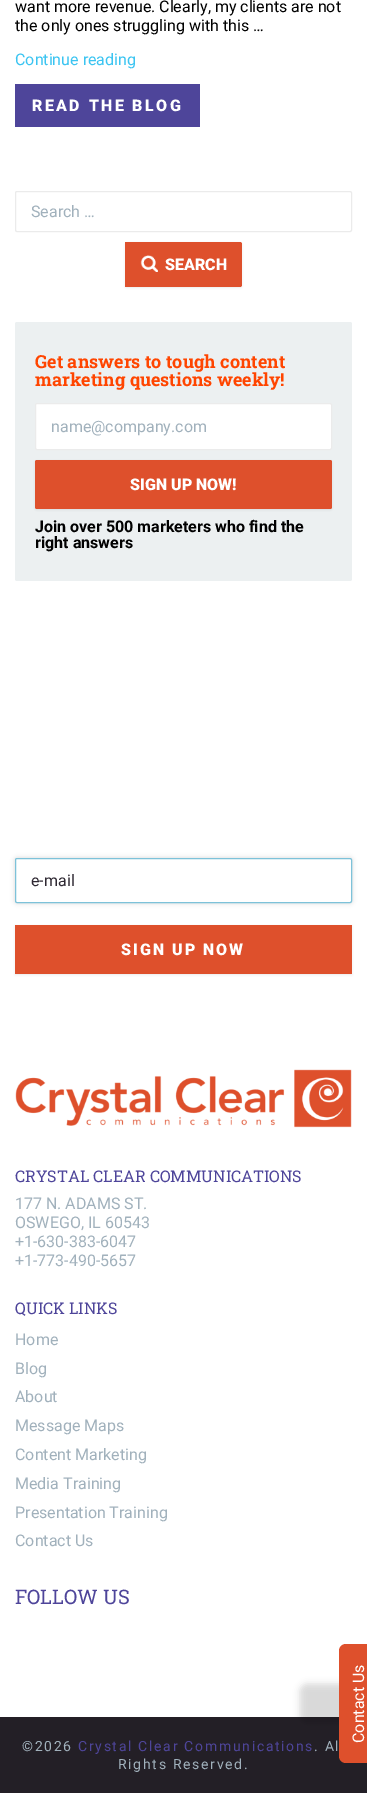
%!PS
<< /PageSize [367 1793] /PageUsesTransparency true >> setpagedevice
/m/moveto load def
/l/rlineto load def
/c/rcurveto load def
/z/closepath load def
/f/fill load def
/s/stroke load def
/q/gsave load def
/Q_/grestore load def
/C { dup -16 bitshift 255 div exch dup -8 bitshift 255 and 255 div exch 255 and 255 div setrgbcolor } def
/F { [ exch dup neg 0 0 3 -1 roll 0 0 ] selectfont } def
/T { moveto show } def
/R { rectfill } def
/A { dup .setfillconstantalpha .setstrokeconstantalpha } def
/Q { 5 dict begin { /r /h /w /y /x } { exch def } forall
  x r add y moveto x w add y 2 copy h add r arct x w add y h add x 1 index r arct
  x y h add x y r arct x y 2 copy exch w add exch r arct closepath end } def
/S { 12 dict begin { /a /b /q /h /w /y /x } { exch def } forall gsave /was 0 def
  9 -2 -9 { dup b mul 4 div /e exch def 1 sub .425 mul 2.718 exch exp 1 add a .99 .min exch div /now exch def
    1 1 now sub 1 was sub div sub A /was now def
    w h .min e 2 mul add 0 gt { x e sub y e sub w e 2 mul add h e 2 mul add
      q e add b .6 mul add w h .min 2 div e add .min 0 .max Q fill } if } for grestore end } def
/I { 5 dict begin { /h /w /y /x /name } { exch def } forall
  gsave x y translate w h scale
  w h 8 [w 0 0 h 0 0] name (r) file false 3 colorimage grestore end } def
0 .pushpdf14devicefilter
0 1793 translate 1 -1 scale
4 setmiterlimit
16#FFFFFF C
0 0 367 1793 R
/Roboto-Regular 16 F
16#010101 C
(want more revenue. Clearly, my clients are not) 15 12 T
(the only ones struggling with this …) 15 31 T
16#3BC4F1 C
(Continue reading) 15 65 T
16#4E459A C
15 84 185 43 R
/Roboto-Black 16 F
16#FFFFFF C
32 111 m 2.4 0 (READ THE BLOG) ashow
16#EBEBEB C
15.5 191.5 336 40 1.5 Q s
/Roboto-Regular 16 F
16#A1B1BC C
(Search …) 31 217 T
16#404040 C
125 243 117 45 2 1 .1 S
16#DE502C C
125 242 m 115 0 l 1 0 2 1 2 2 c 0 41 l 0 1 -1 2 -2 2 c -115 0 l z f
(1.rgb) 140 255 18 17 I
/Roboto-Black 16 F
16#FFFFFF C
(SEARCH) 165 270 T
16#ECF0F1 C
15 322 337 259 2 Q f
/RobotoSlab-Bold 18 F
16#FF4500 C
(Get answers to tough content) 35 368 T
(marketing questions weekly!) 35 386 T
16#FFFFFF C
35.5 403.5 296 46 1.5 Q q f Q_
16#EBEBEB C
s
/Roboto-Regular 16 F
16#A1B1BC C
(name@company.com) 51 432 T
16#404040 C
35 461 297 49 2 1 .1 S
16#DE502C C
35 460 297 49 2 Q f
/Roboto-Black 16 F
16#FFFFFF C
(SIGN UP NOW!) 130 490 T
/Roboto-Bold 16 F
16#010101 C
(Join over 500 marketers who find the) 35 532 T
(right answers) 35 548 T
16#000000 C
15 858 337 45 2 2.5 .15 S
16#FFFFFF C
15.5 858.5 336 44 1.5 Q q f Q_
16#7DC2D9 C
s
/Roboto-Regular 16 F
16#2F2933 C
(e-mail) 31 886 T
16#404040 C
15 926 337 49 0 1 .1 S
16#DE502C C
15 925 337 49 R
/Roboto-Black 16 F
16#FFFFFF C
121 955 m 2 0 (SIGN UP NOW) ashow
(2.rgb) 15 1069 337 59 I
/RobotoSlab-Regular 16 F
16#4E459A C
(CRYSTAL CLEAR COMMUNICATIONS) 15 1182 T
/Roboto-Regular 16 F
16#A1B1BC C
(177 N. ADAMS ST.) 15 1209 T
(OSWEGO, IL 60543) 15 1228 T
(+1-630-383-6047) 15 1247 T
(+1-773-490-5657) 15 1266 T
/RobotoSlab-Regular 16 F
16#4E459A C
(QUICK LINKS) 15 1314 T
/Roboto-Regular 16 F
16#A1B1BC C
(Home) 15 1345 T
(Blog) 15 1374 T
(About) 15 1402 T
(Message Maps) 15 1431 T
(Content Marketing) 15 1460 T
(Media Training) 15 1489 T
(Presentation Training) 15 1518 T
(Contact Us) 15 1546 T
/RobotoSlab-Regular 20 F
16#4E459A C
(FOLLOW US) 15 1604 T
16#231F26 C
0 1717 367 76 R
/Roboto-Regular 14 F
16#A1B1BC C
22 1751 m 1.7 0 (©2026) ashow
16#4E459A C
78 1751 m 1.7 0 (Crystal Clear Communications) ashow
16#A1B1BC C
314 1751 m 1.7 0 (. Al) ashow
118 1769 m 1.7 0 (Rights Reserved.) ashow
16#000000 C
300 1684 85 39 7 3.5 .15 S
16#DE502C C
339 1756 m 0 -105 l 0 -4 3 -7 7 -7 c 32 0 l 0 119 l -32 0 l -4 0 -7 -3 -7 -7 c z f
/Roboto-Regular 16 F
16#FFFFFF C
q 364 1743 translate -90 rotate 0 0 m (Contact Us) show Q_
.poppdf14devicefilter showpage
